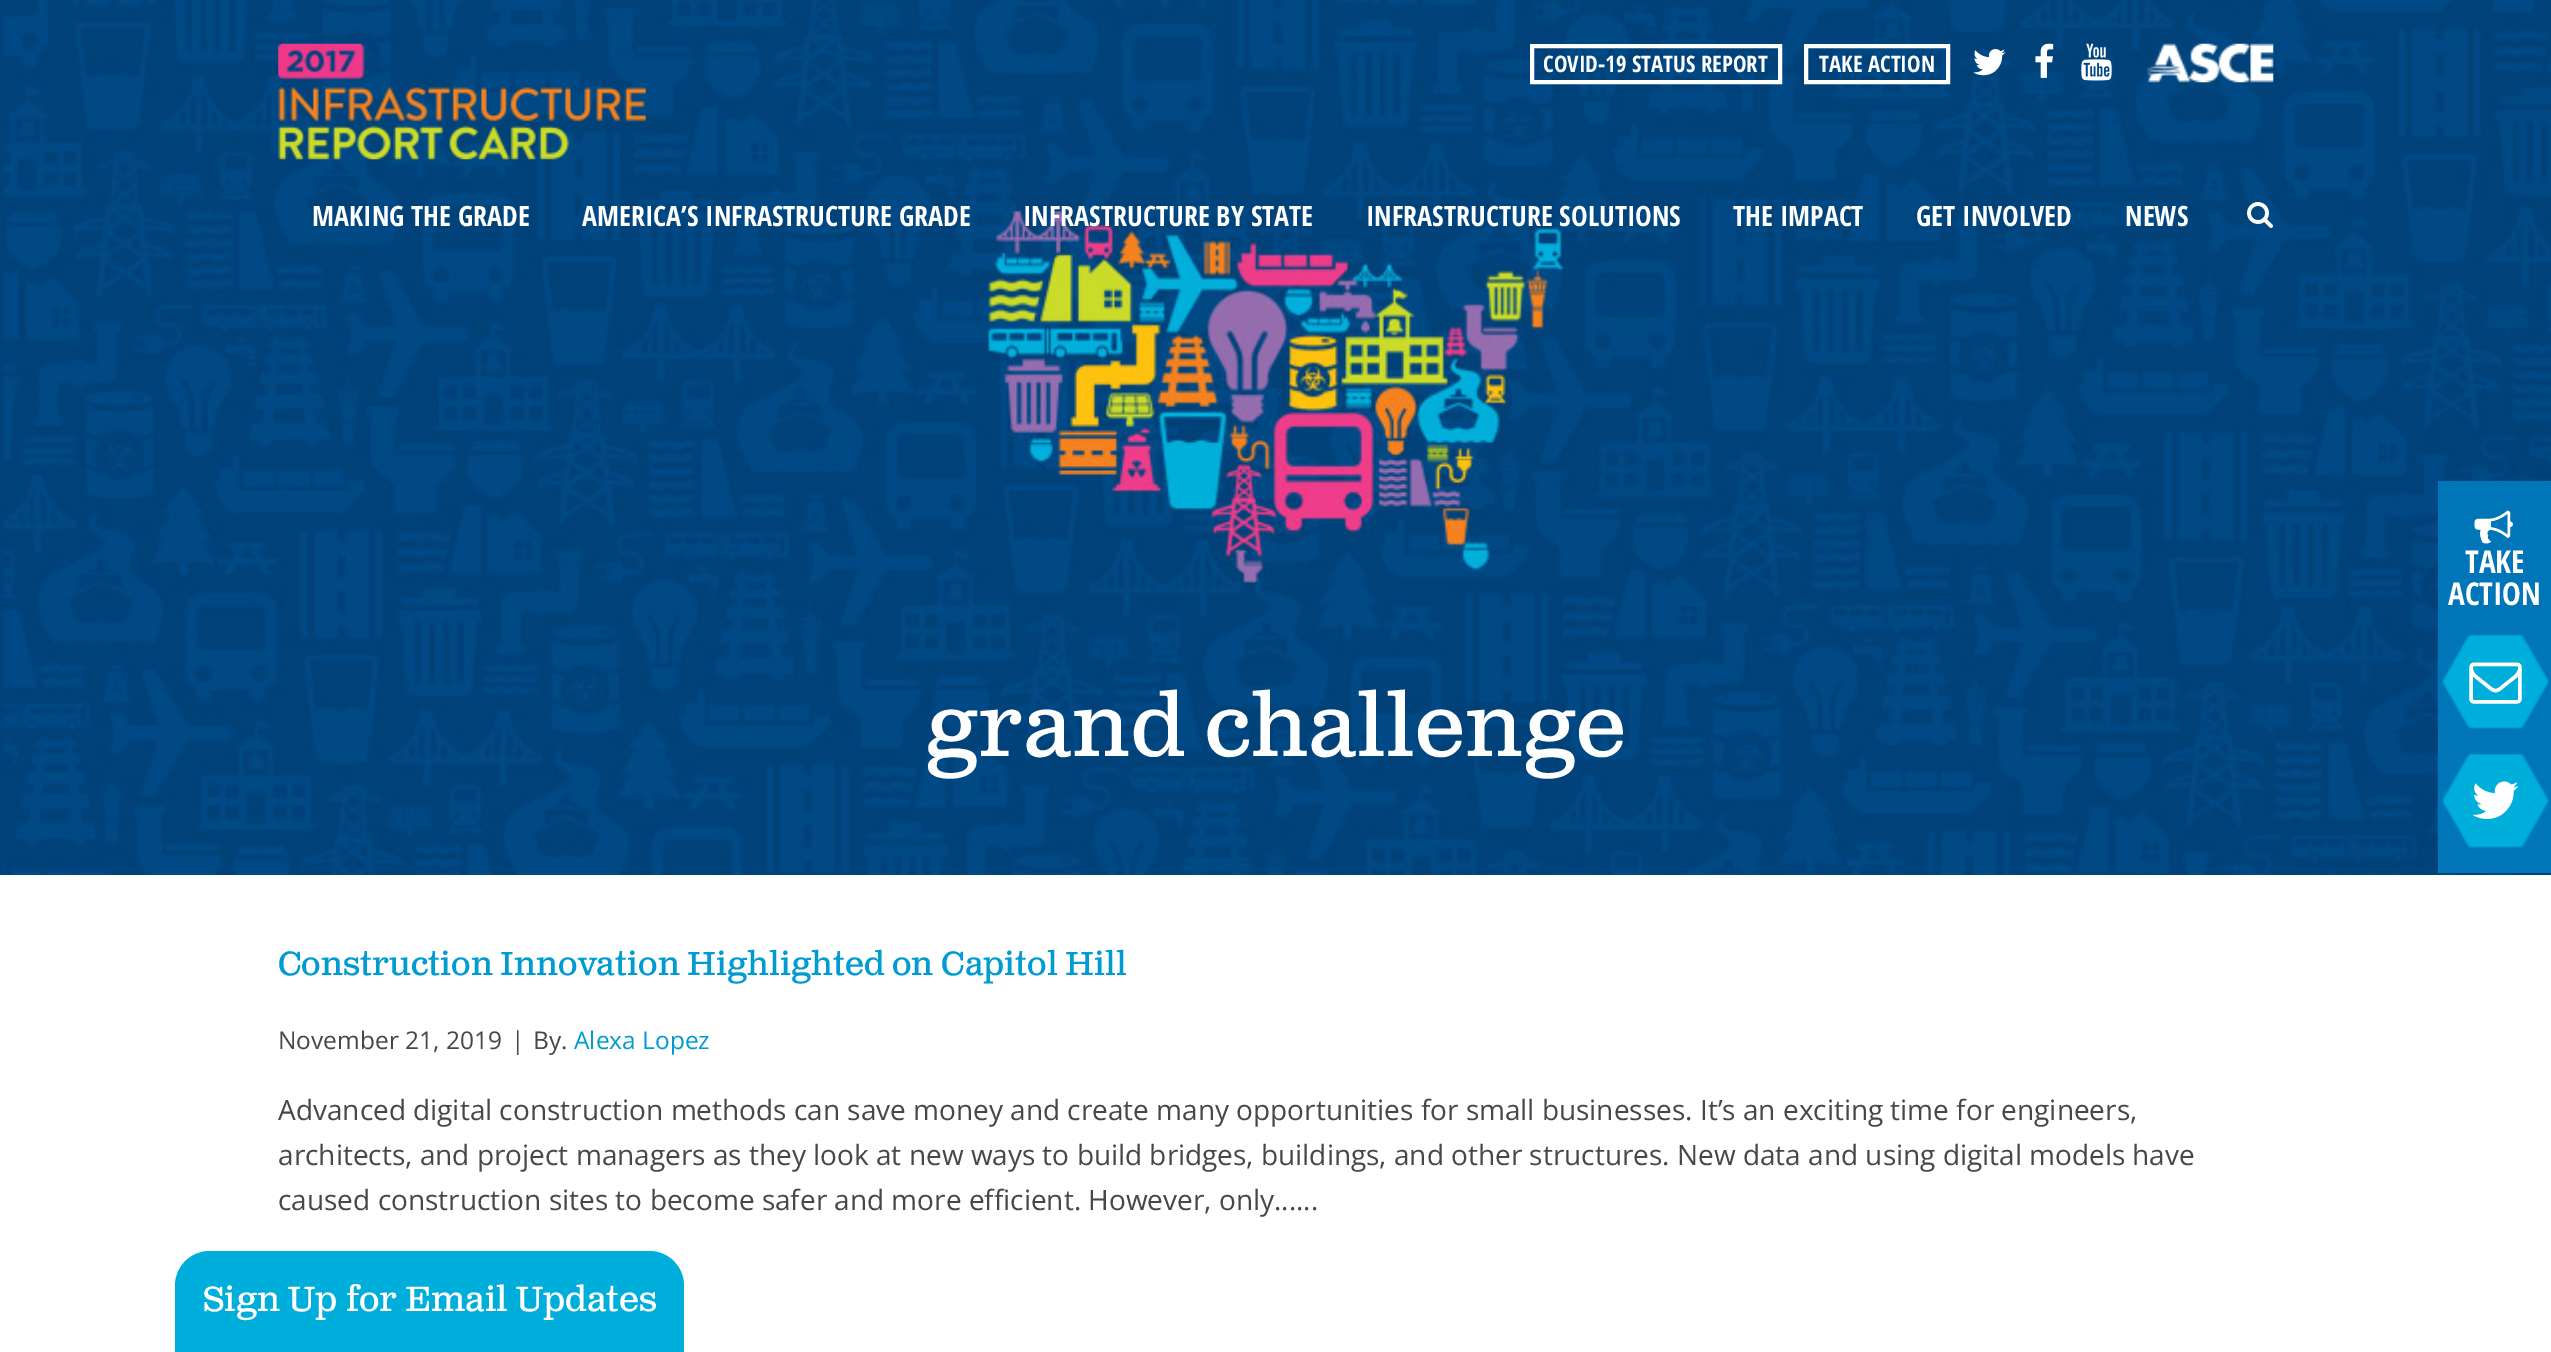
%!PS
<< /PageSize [2551 1352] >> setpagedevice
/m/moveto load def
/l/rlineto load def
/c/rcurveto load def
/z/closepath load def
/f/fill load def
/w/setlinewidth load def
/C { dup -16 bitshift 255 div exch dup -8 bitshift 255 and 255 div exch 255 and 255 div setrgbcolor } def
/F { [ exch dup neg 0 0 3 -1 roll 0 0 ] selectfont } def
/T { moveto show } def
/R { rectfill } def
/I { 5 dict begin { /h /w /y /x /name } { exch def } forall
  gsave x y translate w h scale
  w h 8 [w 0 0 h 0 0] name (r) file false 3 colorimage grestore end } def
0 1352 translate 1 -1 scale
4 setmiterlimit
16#FFFFFF C
0 0 2551 1352 R
(12.rgb) 0 0 2551 875 I
(1.rgb) 278 43 368 117 I
(2.rgb) 1973 49 33 27 I
(3.rgb) 2035 43 19 35 I
(4.rgb) 2081 43 31 38 I
(5.rgb) 2147 43 127 40 I
4 w
1532 46 248 36 rectstroke
/OpenSansCondensed-Bold 22.75 F
(COVID-19 STATUS REPORT) 1543 72 T
1806 46 142 36 rectstroke
(TAKE ACTION) 1819 72 T
/OpenSansCondensed-Bold 28 F
(MAKING THE GRADE) 312 226 T
(AMERICA’S INFRASTRUCTURE GRADE) 582 226 T
(INFRASTRUCTURE BY STATE) 1023 226 T
(INFRASTRUCTURE SOLUTIONS) 1366 226 T
(THE IMPACT) 1733 226 T
(GET INVOLVED) 1916 226 T
(NEWS) 2125 226 T
(6.rgb) 2247 202 26 26 I
16#0075B7 C
2438 481 113 392 R
(7.rgb) 2474 510 39 34 I
/OpenSansCondensed-Bold 31.5 F
16#FFFFFF C
(TAKE) 2465 573 T
(ACTION) 2448 605 T
(8.rgb) 2437 634 112 95 I
(9.rgb) 2469 662 53 42 I
(10.rgb) 2437 753 112 95 I
(11.rgb) 2472 781 47 38 I
/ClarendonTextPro-Regular 87.5 F
(grand challenge) 925 756 T
/ClarendonTextPro-Regular 33.25 F
16#009CD1 C
(Construction Innovation Highlighted on Capitol Hill) 278 975 T
/OpenSans-Regular 24.5 F
16#474747 C
(November 21, 2019) 278 1049 T
(|) 511 1049 T
(By.) 533 1049 T
16#009CD1 C
(Alexa Lopez) 574 1049 T
/OpenSans-Regular 28 F
16#474747 C
(Advanced digital construction methods can save money and create many opportunities for small businesses. It’s an exciting time for engineers,) 278 1120 T
(architects, and project managers as they look at new ways to build bridges, buildings, and other structures. New data and using digital models have) 278 1165 T
(caused construction sites to become safer and more efficient. However, only......) 278 1210 T
16#00AEDB C
210 1251 m 439 0 l 19.5 0 35 15.5 35 35 c 0 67 l -509 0 l 0 -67 l 0 -19.5 15.5 -35 35 -35 c z f
/ClarendonTextPro-Regular 35 F
16#FFFFFF C
(Sign Up for Email Updates) 203 1311 T
showpage
